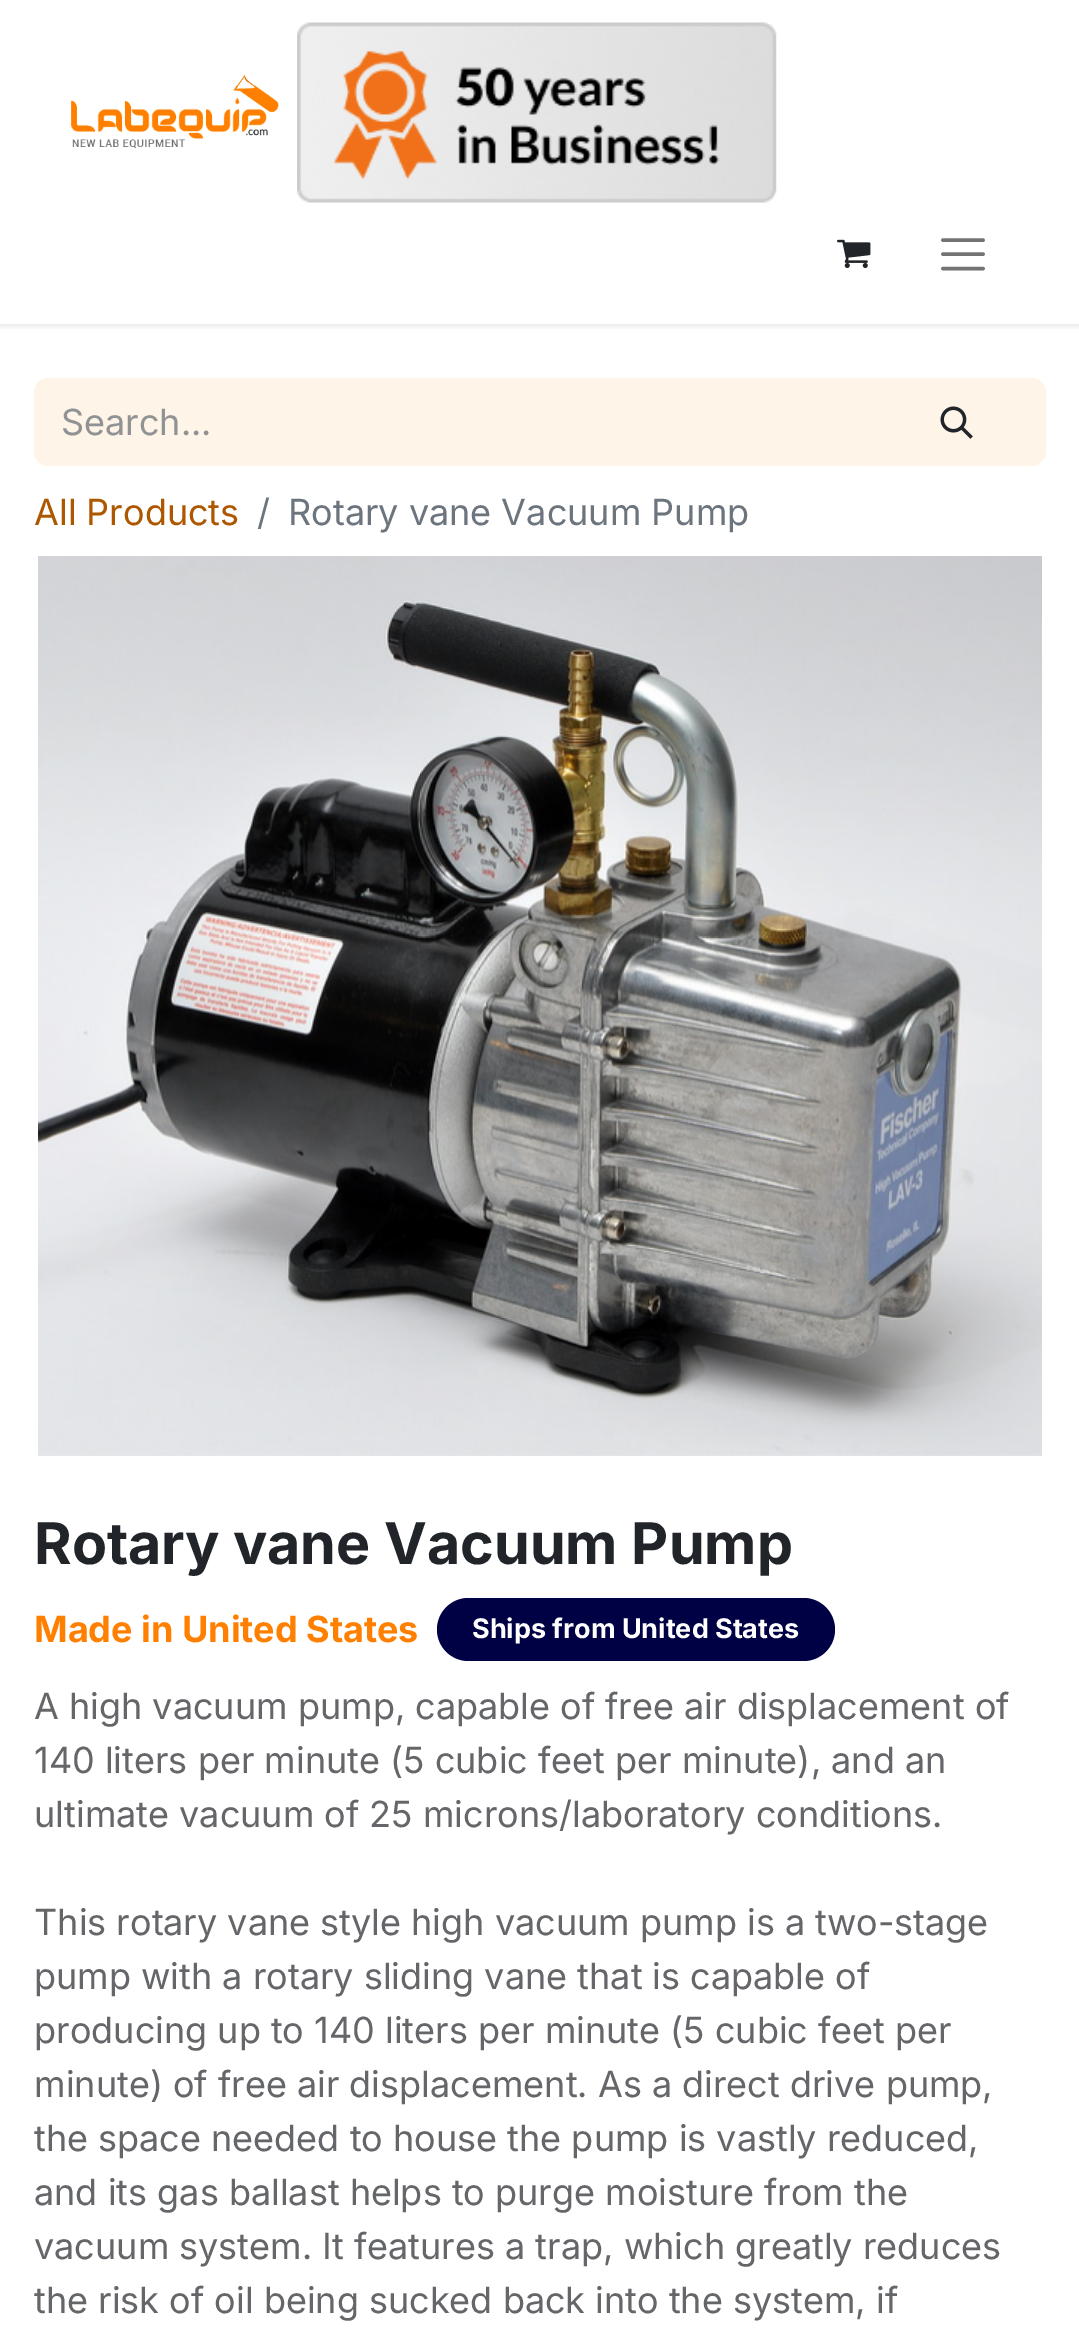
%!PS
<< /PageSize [1079 2331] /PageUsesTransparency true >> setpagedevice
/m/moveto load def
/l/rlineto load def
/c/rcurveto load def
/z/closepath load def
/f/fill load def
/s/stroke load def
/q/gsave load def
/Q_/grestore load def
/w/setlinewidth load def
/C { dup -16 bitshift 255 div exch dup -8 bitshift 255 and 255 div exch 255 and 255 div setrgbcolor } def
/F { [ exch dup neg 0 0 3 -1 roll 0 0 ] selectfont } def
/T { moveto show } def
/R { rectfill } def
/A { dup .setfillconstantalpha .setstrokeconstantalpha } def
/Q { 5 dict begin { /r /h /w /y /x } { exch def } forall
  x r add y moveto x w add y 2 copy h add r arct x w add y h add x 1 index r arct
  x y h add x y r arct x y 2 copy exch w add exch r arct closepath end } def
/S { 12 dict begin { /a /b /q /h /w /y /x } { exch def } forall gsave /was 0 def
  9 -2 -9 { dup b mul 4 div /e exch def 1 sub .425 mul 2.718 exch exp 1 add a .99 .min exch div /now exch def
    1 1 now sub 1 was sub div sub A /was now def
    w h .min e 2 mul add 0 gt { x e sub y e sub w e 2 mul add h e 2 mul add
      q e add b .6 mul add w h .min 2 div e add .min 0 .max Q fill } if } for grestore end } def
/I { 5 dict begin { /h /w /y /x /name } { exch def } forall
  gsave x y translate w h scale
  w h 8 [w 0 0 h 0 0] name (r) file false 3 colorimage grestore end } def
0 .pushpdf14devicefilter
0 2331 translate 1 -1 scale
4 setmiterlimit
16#FFFFFF C
0 0 1079 2331 R
q
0 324 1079 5 rectclip
16#000000 C
0 2 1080 324 0 3.5 .1 S
Q_
(1.rgb) 71 74 208 75 I
(2.rgb) 297 22 480 181 I
(3.rgb) 837 239 34 30 I
16#737373 C
3.6 w
1 setlinecap
943 240 m 40 0 l 943 254 m 40 0 l 943 268.5 m 40 0 l s
16#FFF4E8 C
48 378 m 821 0 l 0 88 l -821 0 l -7.5 0 -14 -6.5 -14 -14 c 0 -60 l 0 -7.5 6.5 -14 14 -14 c z f
/Inter-Regular 36 F
16#909294 C
(Search...) 61 435 T
16#FFF4E8 C
867 379 m 165 0 l 7 0 13 6 13 13 c 0 60 l 0 7 -6 13 -13 13 c -165 0 l z q f Q_
2 w
0 setlinecap
s
(4.rgb) 940 406 33 33 I
16#AD5700 C
(All Products) 34 525 T
16#6C757D C
(/) 257 525 T
(Rotary vane Vacuum Pump) 288 525 T
(5.rgb) 38 556 1004 900 I
/Inter-Bold 57.4 F
16#212529 C
(Rotary vane Vacuum Pump) 34 1564 T
/Inter-Bold 36 F
16#FF8000 C
(Made in United States) 34 1642 T
16#000044 C
437 1598 398 63 31.5 Q f
/Inter-Bold 27 F
16#FFFFFF C
(Ships from United States) 472 1638 T
/Inter-Regular 36 F
16#646669 C
(A high vacuum pump, capable of free air displacement of) 34 1719 T
(140 liters per minute \(5 cubic feet per minute\), and an) 34 1773 T
(ultimate vacuum of 25 microns/laboratory conditions.) 34 1827 T
(This rotary vane style high vacuum pump is a two-stage) 34 1935 T
(pump with a rotary sliding vane that is capable of) 34 1989 T
(producing up to 140 liters per minute \(5 cubic feet per) 34 2043 T
(minute\) of free air displacement. As a direct drive pump,) 34 2097 T
(the space needed to house the pump is vastly reduced,) 34 2151 T
(and its gas ballast helps to purge moisture from the) 34 2205 T
(vacuum system. It features a trap, which greatly reduces) 34 2259 T
(the risk of oil being sucked back into the system, if) 34 2313 T
.poppdf14devicefilter showpage
